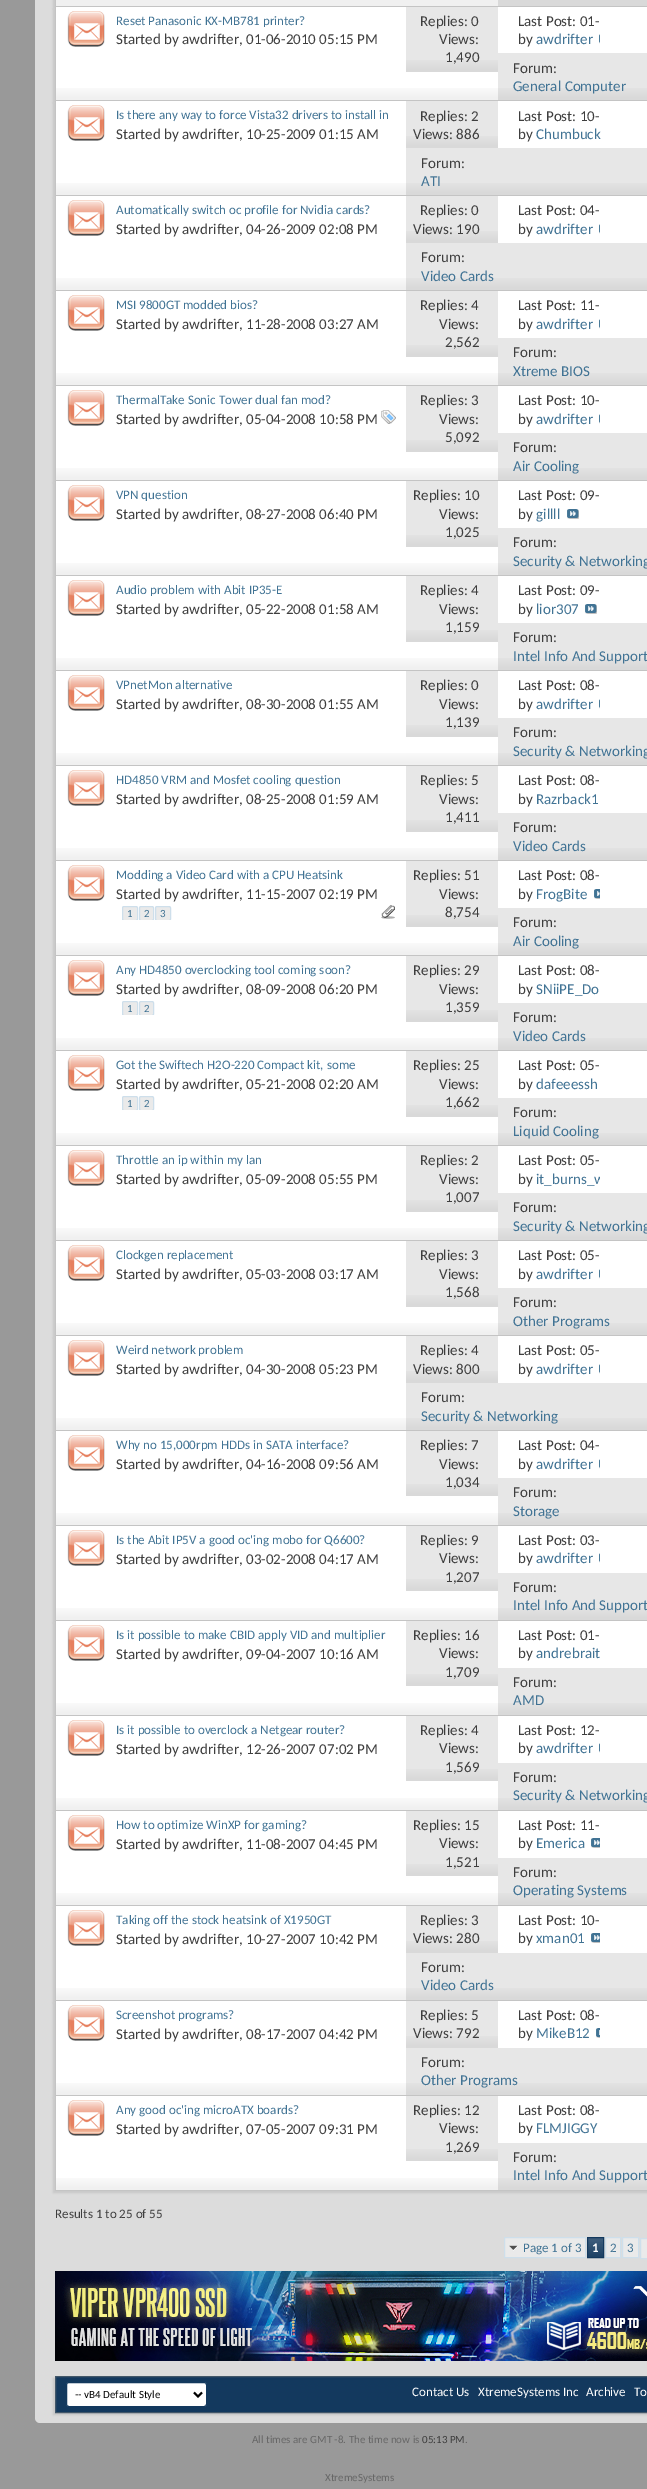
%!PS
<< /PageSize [647 2489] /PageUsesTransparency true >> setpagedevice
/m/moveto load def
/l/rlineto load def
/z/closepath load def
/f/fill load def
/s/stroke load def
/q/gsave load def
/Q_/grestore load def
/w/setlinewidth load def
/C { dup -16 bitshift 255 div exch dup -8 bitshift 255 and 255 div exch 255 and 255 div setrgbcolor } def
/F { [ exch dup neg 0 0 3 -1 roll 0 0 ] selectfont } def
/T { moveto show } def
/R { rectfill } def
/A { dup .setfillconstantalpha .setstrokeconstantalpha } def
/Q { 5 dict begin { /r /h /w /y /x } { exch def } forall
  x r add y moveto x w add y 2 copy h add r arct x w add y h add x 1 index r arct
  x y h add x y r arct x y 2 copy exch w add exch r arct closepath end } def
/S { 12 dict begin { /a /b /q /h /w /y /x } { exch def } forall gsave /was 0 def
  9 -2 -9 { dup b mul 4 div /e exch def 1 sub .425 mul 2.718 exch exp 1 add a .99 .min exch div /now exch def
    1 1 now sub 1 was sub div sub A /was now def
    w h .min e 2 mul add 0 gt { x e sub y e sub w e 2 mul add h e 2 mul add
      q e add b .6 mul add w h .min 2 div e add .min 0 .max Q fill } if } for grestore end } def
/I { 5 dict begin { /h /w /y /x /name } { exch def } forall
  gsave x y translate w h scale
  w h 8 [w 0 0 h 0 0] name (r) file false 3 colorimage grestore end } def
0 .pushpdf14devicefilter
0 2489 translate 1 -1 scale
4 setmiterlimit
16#999999 C
0 0 647 2489 R
16#DCDCDC C
35 -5 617 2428 5 Q f
16#C8C8C8 C
53 -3 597 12 0 1 1 S
16#F0F0F0 C
55 0 443 6 R
16#C4C4C4 C
55 6 592 1 R
55 0 1 7 R
16#D9D9D9 C
498 0 149 6 R
16#C8C8C8 C
53 9 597 94 0 1 1 S
16#FFFFFF C
56 7 591 93 R
(1.rgb) 56 88 442 12 I
16#C4C4C4 C
55 100 592 1 R
55 7 1 94 R
(2.rgb) 67 11 38 36 I
/Carlito-Regular 13 F
16#417394 C
(Reset Panasonic KX-MB781 printer?) 116 25 T
/Carlito-Regular 15 F
16#3E3E3E C
(Started by awdrifter, 01-06-2010 05:15 PM) 116 44 T
16#E7E7E7 C
406 7 92 65 R
(3.rgb) 406 60 92 12 I
16#3E3E3E C
(Replies: 0) 420 26 T
(Views:) 439 44 T
(1,490) 445 62 T
(Last Post: 01-) 518 26 T
(by) 518 44 T
16#417394 C
(awdrifter) 536 44 T
(4.rgb) 599 34 1 10 I
16#E7E7E7 C
498 53 149 47 R
(5.rgb) 498 88 149 12 I
16#3E3E3E C
(Forum:) 513 73 T
16#417394 C
(General Computer) 513 91 T
16#C8C8C8 C
53 103 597 95 0 1 1 S
16#FFFFFF C
56 101 591 94 R
(6.rgb) 56 183 350 12 I
16#C4C4C4 C
55 195 592 1 R
55 101 1 95 R
(2.rgb) 67 105 38 36 I
/Carlito-Regular 13 F
16#417394 C
(Is there any way to force Vista32 drivers to install in) 116 119 T
/Carlito-Regular 15 F
16#3E3E3E C
(Started by awdrifter, 10-25-2009 01:15 AM) 116 139 T
16#E7E7E7 C
406 101 92 47 R
(3.rgb) 406 136 92 12 I
16#3E3E3E C
(Replies: 2) 420 121 T
(Views: 886) 413 139 T
(Last Post: 10-) 518 121 T
(by) 518 139 T
16#417394 C
(Chumbuck) 536 139 T
16#E7E7E7 C
406 148 241 47 R
(7.rgb) 406 183 241 12 I
16#3E3E3E C
(Forum:) 421 168 T
16#417394 C
(ATI) 421 186 T
16#C8C8C8 C
53 198 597 95 0 1 1 S
16#FFFFFF C
56 196 591 94 R
(6.rgb) 56 278 350 12 I
16#C4C4C4 C
55 290 592 1 R
55 196 1 95 R
(2.rgb) 67 200 38 36 I
/Carlito-Regular 13 F
16#417394 C
(Automatically switch oc profile for Nvidia cards?) 116 214 T
/Carlito-Regular 15 F
16#3E3E3E C
(Started by awdrifter, 04-26-2009 02:08 PM) 116 234 T
16#E7E7E7 C
406 196 92 47 R
(3.rgb) 406 231 92 12 I
16#3E3E3E C
(Replies: 0) 420 215 T
(Views: 190) 413 234 T
(Last Post: 04-) 518 215 T
(by) 518 234 T
16#417394 C
(awdrifter) 536 234 T
(4.rgb) 599 224 1 10 I
16#E7E7E7 C
406 243 241 47 R
(7.rgb) 406 278 241 12 I
16#3E3E3E C
(Forum:) 421 262 T
16#417394 C
(Video Cards) 421 281 T
16#C8C8C8 C
53 293 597 95 0 1 1 S
16#FFFFFF C
56 291 591 94 R
(1.rgb) 56 373 442 12 I
16#C4C4C4 C
55 385 592 1 R
55 291 1 95 R
(2.rgb) 67 295 38 36 I
/Carlito-Regular 13 F
16#417394 C
(MSI 9800GT modded bios?) 116 309 T
/Carlito-Regular 15 F
16#3E3E3E C
(Started by awdrifter, 11-28-2008 03:27 AM) 116 329 T
16#E7E7E7 C
406 291 92 66 R
(3.rgb) 406 345 92 12 I
16#3E3E3E C
(Replies: 4) 420 310 T
(Views:) 439 329 T
(2,562) 445 347 T
(Last Post: 11-) 518 310 T
(by) 518 329 T
16#417394 C
(awdrifter) 536 329 T
(4.rgb) 599 319 1 10 I
16#E7E7E7 C
498 338 149 47 R
(5.rgb) 498 373 149 12 I
16#3E3E3E C
(Forum:) 513 357 T
16#417394 C
(Xtreme BIOS) 513 376 T
16#C8C8C8 C
53 388 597 95 0 1 1 S
16#FFFFFF C
56 386 591 94 R
(1.rgb) 56 468 442 12 I
16#C4C4C4 C
55 480 592 1 R
55 386 1 95 R
(2.rgb) 67 390 38 36 I
/Carlito-Regular 13 F
16#417394 C
(ThermalTake Sonic Tower dual fan mod?) 116 404 T
/Carlito-Regular 15 F
16#3E3E3E C
(Started by awdrifter, 05-04-2008 10:58 PM) 116 424 T
(8.rgb) 381 410 15 14 I
16#E7E7E7 C
406 386 92 66 R
(3.rgb) 406 440 92 12 I
16#3E3E3E C
(Replies: 3) 420 405 T
(Views:) 439 424 T
(5,092) 445 442 T
(Last Post: 10-) 518 405 T
(by) 518 424 T
16#417394 C
(awdrifter) 536 424 T
(4.rgb) 599 414 1 10 I
16#E7E7E7 C
498 433 149 47 R
(5.rgb) 498 468 149 12 I
16#3E3E3E C
(Forum:) 513 452 T
16#417394 C
(Air Cooling) 513 471 T
16#C8C8C8 C
53 483 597 95 0 1 1 S
16#FFFFFF C
56 481 591 94 R
(1.rgb) 56 563 442 12 I
16#C4C4C4 C
55 575 592 1 R
55 481 1 95 R
(2.rgb) 67 485 38 36 I
/Carlito-Regular 13 F
16#417394 C
(VPN question) 116 499 T
/Carlito-Regular 15 F
16#3E3E3E C
(Started by awdrifter, 08-27-2008 06:40 PM) 116 519 T
16#E7E7E7 C
406 481 92 66 R
(3.rgb) 406 535 92 12 I
16#3E3E3E C
(Replies: 10) 413 500 T
(Views:) 439 519 T
(1,025) 445 537 T
(Last Post: 09-) 518 500 T
(by) 518 519 T
16#417394 C
(gillll) 536 519 T
(9.rgb) 567 509 12 10 I
16#E7E7E7 C
498 528 149 47 R
(5.rgb) 498 563 149 12 I
16#3E3E3E C
(Forum:) 513 547 T
16#417394 C
(Security & Networking) 513 566 T
16#C8C8C8 C
53 578 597 95 0 1 1 S
16#FFFFFF C
56 576 591 94 R
(1.rgb) 56 658 442 12 I
16#C4C4C4 C
55 670 592 1 R
55 576 1 95 R
(2.rgb) 67 580 38 36 I
/Carlito-Regular 13 F
16#417394 C
(Audio problem with Abit IP35-E) 116 594 T
/Carlito-Regular 15 F
16#3E3E3E C
(Started by awdrifter, 05-22-2008 01:58 AM) 116 614 T
16#E7E7E7 C
406 576 92 66 R
(3.rgb) 406 630 92 12 I
16#3E3E3E C
(Replies: 4) 420 595 T
(Views:) 439 614 T
(1,159) 445 632 T
(Last Post: 09-) 518 595 T
(by) 518 614 T
16#417394 C
(lior307) 536 614 T
(9.rgb) 585 604 12 10 I
16#E7E7E7 C
498 623 149 47 R
(5.rgb) 498 658 149 12 I
16#3E3E3E C
(Forum:) 513 642 T
16#417394 C
(Intel Info And Support) 513 661 T
16#C8C8C8 C
53 673 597 95 0 1 1 S
16#FFFFFF C
56 671 591 94 R
(1.rgb) 56 753 442 12 I
16#C4C4C4 C
55 765 592 1 R
55 671 1 95 R
(2.rgb) 67 675 38 36 I
/Carlito-Regular 13 F
16#417394 C
(VPnetMon alternative) 116 689 T
/Carlito-Regular 15 F
16#3E3E3E C
(Started by awdrifter, 08-30-2008 01:55 AM) 116 709 T
16#E7E7E7 C
406 671 92 66 R
(3.rgb) 406 725 92 12 I
16#3E3E3E C
(Replies: 0) 420 690 T
(Views:) 439 709 T
(1,139) 445 727 T
(Last Post: 08-) 518 690 T
(by) 518 709 T
16#417394 C
(awdrifter) 536 709 T
(4.rgb) 599 699 1 10 I
16#E7E7E7 C
498 718 149 47 R
(5.rgb) 498 753 149 12 I
16#3E3E3E C
(Forum:) 513 737 T
16#417394 C
(Security & Networking) 513 756 T
16#C8C8C8 C
53 768 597 95 0 1 1 S
16#FFFFFF C
56 766 591 94 R
(1.rgb) 56 848 442 12 I
16#C4C4C4 C
55 860 592 1 R
55 766 1 95 R
(2.rgb) 67 770 38 36 I
/Carlito-Regular 13 F
16#417394 C
(HD4850 VRM and Mosfet cooling question) 116 784 T
/Carlito-Regular 15 F
16#3E3E3E C
(Started by awdrifter, 08-25-2008 01:59 AM) 116 804 T
16#E7E7E7 C
406 766 92 66 R
(3.rgb) 406 820 92 12 I
16#3E3E3E C
(Replies: 5) 420 785 T
(Views:) 439 804 T
(1,411) 445 822 T
(Last Post: 08-) 518 785 T
(by) 518 804 T
16#417394 C
(Razrback1) 536 804 T
16#E7E7E7 C
498 813 149 47 R
(5.rgb) 498 848 149 12 I
16#3E3E3E C
(Forum:) 513 832 T
16#417394 C
(Video Cards) 513 851 T
16#C8C8C8 C
53 863 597 95 0 1 1 S
16#FFFFFF C
56 861 591 94 R
(1.rgb) 56 943 442 12 I
16#C4C4C4 C
55 955 592 1 R
55 861 1 95 R
(2.rgb) 67 865 38 36 I
/Carlito-Regular 13 F
16#417394 C
(Modding a Video Card with a CPU Heatsink) 116 879 T
/Carlito-Regular 15 F
16#3E3E3E C
(Started by awdrifter, 11-15-2007 02:19 PM) 116 899 T
q
56 861 350 59 rectclip
16#EAEAEA C
122.5 906.5 15 14 1.5 Q q f Q_
16#CEDFEB C
s
Q_
/Carlito-Regular 11 F
16#417394 C
(1) 127 917 T
q
56 861 350 59 rectclip
16#EAEAEA C
139.5 906.5 14 14 1.5 Q q f Q_
16#CEDFEB C
s
Q_
(2) 144 917 T
q
56 861 350 59 rectclip
16#EAEAEA C
155.5 906.5 15 14 1.5 Q q f Q_
16#CEDFEB C
s
Q_
(3) 160 917 T
(10.rgb) 381 905 14 14 I
16#E7E7E7 C
406 861 92 66 R
(3.rgb) 406 915 92 12 I
/Carlito-Regular 15 F
16#3E3E3E C
(Replies: 51) 413 880 T
(Views:) 439 899 T
(8,754) 445 917 T
(Last Post: 08-) 518 880 T
(by) 518 899 T
16#417394 C
(FrogBite) 536 899 T
(11.rgb) 594 889 6 10 I
16#E7E7E7 C
498 908 149 47 R
(5.rgb) 498 943 149 12 I
16#3E3E3E C
(Forum:) 513 927 T
16#417394 C
(Air Cooling) 513 946 T
16#C8C8C8 C
53 958 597 95 0 1 1 S
16#FFFFFF C
56 956 591 94 R
(1.rgb) 56 1038 442 12 I
16#C4C4C4 C
55 1050 592 1 R
55 956 1 95 R
(2.rgb) 67 960 38 36 I
/Carlito-Regular 13 F
16#417394 C
(Any HD4850 overclocking tool coming soon?) 116 974 T
/Carlito-Regular 15 F
16#3E3E3E C
(Started by awdrifter, 08-09-2008 06:20 PM) 116 994 T
q
56 956 350 59 rectclip
16#EAEAEA C
122.5 1001.5 15 14 1.5 Q q f Q_
16#CEDFEB C
s
Q_
/Carlito-Regular 11 F
16#417394 C
(1) 127 1012 T
q
56 956 350 59 rectclip
16#EAEAEA C
139.5 1001.5 14 14 1.5 Q q f Q_
16#CEDFEB C
s
Q_
(2) 144 1012 T
16#E7E7E7 C
406 956 92 66 R
(3.rgb) 406 1010 92 12 I
/Carlito-Regular 15 F
16#3E3E3E C
(Replies: 29) 413 975 T
(Views:) 439 994 T
(1,359) 445 1012 T
(Last Post: 08-) 518 975 T
(by) 518 994 T
16#417394 C
(SNiiPE_Do) 536 994 T
16#E7E7E7 C
498 1003 149 47 R
(5.rgb) 498 1038 149 12 I
16#3E3E3E C
(Forum:) 513 1022 T
16#417394 C
(Video Cards) 513 1041 T
16#C8C8C8 C
53 1053 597 95 0 1 1 S
16#FFFFFF C
56 1051 591 94 R
(1.rgb) 56 1133 442 12 I
16#C4C4C4 C
55 1145 592 1 R
55 1051 1 95 R
(2.rgb) 67 1055 38 36 I
/Carlito-Regular 13 F
16#417394 C
(Got the Swiftech H2O-220 Compact kit, some) 116 1069 T
/Carlito-Regular 15 F
16#3E3E3E C
(Started by awdrifter, 05-21-2008 02:20 AM) 116 1089 T
q
56 1051 350 59 rectclip
16#EAEAEA C
122.5 1096.5 15 14 1.5 Q q f Q_
16#CEDFEB C
s
Q_
/Carlito-Regular 11 F
16#417394 C
(1) 127 1107 T
q
56 1051 350 59 rectclip
16#EAEAEA C
139.5 1096.5 14 14 1.5 Q q f Q_
16#CEDFEB C
s
Q_
(2) 144 1107 T
16#E7E7E7 C
406 1051 92 66 R
(3.rgb) 406 1105 92 12 I
/Carlito-Regular 15 F
16#3E3E3E C
(Replies: 25) 413 1070 T
(Views:) 439 1089 T
(1,662) 445 1107 T
(Last Post: 05-) 518 1070 T
(by) 518 1089 T
16#417394 C
(dafeeessh) 536 1089 T
16#E7E7E7 C
498 1098 149 47 R
(5.rgb) 498 1133 149 12 I
16#3E3E3E C
(Forum:) 513 1117 T
16#417394 C
(Liquid Cooling) 513 1136 T
16#C8C8C8 C
53 1148 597 95 0 1 1 S
16#FFFFFF C
56 1146 591 94 R
(1.rgb) 56 1228 442 12 I
16#C4C4C4 C
55 1240 592 1 R
55 1146 1 95 R
(2.rgb) 67 1150 38 36 I
/Carlito-Regular 13 F
16#417394 C
(Throttle an ip within my lan) 116 1164 T
/Carlito-Regular 15 F
16#3E3E3E C
(Started by awdrifter, 05-09-2008 05:55 PM) 116 1184 T
16#E7E7E7 C
406 1146 92 66 R
(3.rgb) 406 1200 92 12 I
16#3E3E3E C
(Replies: 2) 420 1165 T
(Views:) 439 1184 T
(1,007) 445 1202 T
(Last Post: 05-) 518 1165 T
(by) 518 1184 T
q
518 1170 82 18 rectclip
16#417394 C
(it_burns_w) 536 1184 T
Q_
16#E7E7E7 C
498 1193 149 47 R
(5.rgb) 498 1228 149 12 I
16#3E3E3E C
(Forum:) 513 1212 T
16#417394 C
(Security & Networking) 513 1231 T
16#C8C8C8 C
53 1243 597 95 0 1 1 S
16#FFFFFF C
56 1241 591 94 R
(1.rgb) 56 1323 442 12 I
16#C4C4C4 C
55 1335 592 1 R
55 1241 1 95 R
(2.rgb) 67 1245 38 36 I
/Carlito-Regular 13 F
16#417394 C
(Clockgen replacement) 116 1259 T
/Carlito-Regular 15 F
16#3E3E3E C
(Started by awdrifter, 05-03-2008 03:17 AM) 116 1279 T
16#E7E7E7 C
406 1241 92 66 R
(3.rgb) 406 1295 92 12 I
16#3E3E3E C
(Replies: 3) 420 1260 T
(Views:) 439 1279 T
(1,568) 445 1297 T
(Last Post: 05-) 518 1260 T
(by) 518 1279 T
16#417394 C
(awdrifter) 536 1279 T
(4.rgb) 599 1269 1 10 I
16#E7E7E7 C
498 1288 149 47 R
(5.rgb) 498 1323 149 12 I
16#3E3E3E C
(Forum:) 513 1307 T
16#417394 C
(Other Programs) 513 1326 T
16#C8C8C8 C
53 1338 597 95 0 1 1 S
16#FFFFFF C
56 1336 591 94 R
(6.rgb) 56 1418 350 12 I
16#C4C4C4 C
55 1430 592 1 R
55 1336 1 95 R
(2.rgb) 67 1340 38 36 I
/Carlito-Regular 13 F
16#417394 C
(Weird network problem) 116 1354 T
/Carlito-Regular 15 F
16#3E3E3E C
(Started by awdrifter, 04-30-2008 05:23 PM) 116 1374 T
16#E7E7E7 C
406 1336 92 47 R
(3.rgb) 406 1371 92 12 I
16#3E3E3E C
(Replies: 4) 420 1355 T
(Views: 800) 413 1374 T
(Last Post: 05-) 518 1355 T
(by) 518 1374 T
16#417394 C
(awdrifter) 536 1374 T
(4.rgb) 599 1364 1 10 I
16#E7E7E7 C
406 1383 241 47 R
(7.rgb) 406 1418 241 12 I
16#3E3E3E C
(Forum:) 421 1402 T
16#417394 C
(Security & Networking) 421 1421 T
16#C8C8C8 C
53 1433 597 95 0 1 1 S
16#FFFFFF C
56 1431 591 94 R
(1.rgb) 56 1513 442 12 I
16#C4C4C4 C
55 1525 592 1 R
55 1431 1 95 R
(2.rgb) 67 1435 38 36 I
/Carlito-Regular 13 F
16#417394 C
(Why no 15,000rpm HDDs in SATA interface?) 116 1449 T
/Carlito-Regular 15 F
16#3E3E3E C
(Started by awdrifter, 04-16-2008 09:56 AM) 116 1469 T
16#E7E7E7 C
406 1431 92 65 R
(3.rgb) 406 1484 92 12 I
16#3E3E3E C
(Replies: 7) 420 1450 T
(Views:) 439 1469 T
(1,034) 445 1487 T
(Last Post: 04-) 518 1450 T
(by) 518 1469 T
16#417394 C
(awdrifter) 536 1469 T
(4.rgb) 599 1459 1 10 I
16#E7E7E7 C
498 1478 149 47 R
(5.rgb) 498 1513 149 12 I
16#3E3E3E C
(Forum:) 513 1497 T
16#417394 C
(Storage) 513 1516 T
16#C8C8C8 C
53 1528 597 95 0 1 1 S
16#FFFFFF C
56 1526 591 94 R
(1.rgb) 56 1608 442 12 I
16#C4C4C4 C
55 1620 592 1 R
55 1526 1 95 R
(2.rgb) 67 1530 38 36 I
/Carlito-Regular 13 F
16#417394 C
(Is the Abit IP5V a good oc'ing mobo for Q6600?) 116 1544 T
/Carlito-Regular 15 F
16#3E3E3E C
(Started by awdrifter, 03-02-2008 04:17 AM) 116 1564 T
16#E7E7E7 C
406 1526 92 65 R
(3.rgb) 406 1579 92 12 I
16#3E3E3E C
(Replies: 9) 420 1545 T
(Views:) 439 1563 T
(1,207) 445 1582 T
(Last Post: 03-) 518 1545 T
(by) 518 1563 T
16#417394 C
(awdrifter) 536 1563 T
(4.rgb) 599 1553 1 10 I
16#E7E7E7 C
498 1573 149 47 R
(5.rgb) 498 1608 149 12 I
16#3E3E3E C
(Forum:) 513 1592 T
16#417394 C
(Intel Info And Support) 513 1610 T
16#C8C8C8 C
53 1623 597 95 0 1 1 S
16#FFFFFF C
56 1621 591 94 R
(1.rgb) 56 1703 442 12 I
16#C4C4C4 C
55 1715 592 1 R
55 1621 1 95 R
(2.rgb) 67 1625 38 36 I
/Carlito-Regular 13 F
16#417394 C
(Is it possible to make CBID apply VID and multiplier) 116 1639 T
/Carlito-Regular 15 F
16#3E3E3E C
(Started by awdrifter, 09-04-2007 10:16 AM) 116 1659 T
16#E7E7E7 C
406 1621 92 65 R
(3.rgb) 406 1674 92 12 I
16#3E3E3E C
(Replies: 16) 413 1640 T
(Views:) 439 1658 T
(1,709) 445 1677 T
(Last Post: 01-) 518 1640 T
(by) 518 1658 T
16#417394 C
(andrebrait) 536 1658 T
16#E7E7E7 C
498 1668 149 47 R
(5.rgb) 498 1703 149 12 I
16#3E3E3E C
(Forum:) 513 1687 T
16#417394 C
(AMD) 513 1705 T
16#C8C8C8 C
53 1718 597 95 0 1 1 S
16#FFFFFF C
56 1716 591 94 R
(1.rgb) 56 1798 442 12 I
16#C4C4C4 C
55 1810 592 1 R
55 1716 1 95 R
(2.rgb) 67 1720 38 36 I
/Carlito-Regular 13 F
16#417394 C
(Is it possible to overclock a Netgear router?) 116 1734 T
/Carlito-Regular 15 F
16#3E3E3E C
(Started by awdrifter, 12-26-2007 07:02 PM) 116 1754 T
16#E7E7E7 C
406 1716 92 65 R
(3.rgb) 406 1769 92 12 I
16#3E3E3E C
(Replies: 4) 420 1735 T
(Views:) 439 1753 T
(1,569) 445 1772 T
(Last Post: 12-) 518 1735 T
(by) 518 1753 T
16#417394 C
(awdrifter) 536 1753 T
(4.rgb) 599 1743 1 10 I
16#E7E7E7 C
498 1763 149 47 R
(5.rgb) 498 1798 149 12 I
16#3E3E3E C
(Forum:) 513 1782 T
16#417394 C
(Security & Networking) 513 1800 T
16#C8C8C8 C
53 1813 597 95 0 1 1 S
16#FFFFFF C
56 1811 591 94 R
(1.rgb) 56 1893 442 12 I
16#C4C4C4 C
55 1905 592 1 R
55 1811 1 95 R
(2.rgb) 67 1815 38 36 I
/Carlito-Regular 13 F
16#417394 C
(How to optimize WinXP for gaming?) 116 1829 T
/Carlito-Regular 15 F
16#3E3E3E C
(Started by awdrifter, 11-08-2007 04:45 PM) 116 1849 T
16#E7E7E7 C
406 1811 92 65 R
(3.rgb) 406 1864 92 12 I
16#3E3E3E C
(Replies: 15) 413 1830 T
(Views:) 439 1848 T
(1,521) 445 1867 T
(Last Post: 11-) 518 1830 T
(by) 518 1848 T
16#417394 C
(Emerica) 536 1848 T
(12.rgb) 591 1838 9 10 I
16#E7E7E7 C
498 1858 149 47 R
(5.rgb) 498 1893 149 12 I
16#3E3E3E C
(Forum:) 513 1877 T
16#417394 C
(Operating Systems) 513 1895 T
16#C8C8C8 C
53 1908 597 95 0 1 1 S
16#FFFFFF C
56 1906 591 94 R
(6.rgb) 56 1988 350 12 I
16#C4C4C4 C
55 2000 592 1 R
55 1906 1 95 R
(2.rgb) 67 1910 38 36 I
/Carlito-Regular 13 F
16#417394 C
(Taking off the stock heatsink of X1950GT) 116 1924 T
/Carlito-Regular 15 F
16#3E3E3E C
(Started by awdrifter, 10-27-2007 10:42 PM) 116 1944 T
16#E7E7E7 C
406 1906 92 47 R
(3.rgb) 406 1941 92 12 I
16#3E3E3E C
(Replies: 3) 420 1925 T
(Views: 280) 413 1943 T
(Last Post: 10-) 518 1925 T
(by) 518 1943 T
16#417394 C
(xman01) 536 1943 T
(12.rgb) 591 1933 9 10 I
16#E7E7E7 C
406 1953 241 47 R
(7.rgb) 406 1988 241 12 I
16#3E3E3E C
(Forum:) 421 1972 T
16#417394 C
(Video Cards) 421 1990 T
16#C8C8C8 C
53 2003 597 95 0 1 1 S
16#FFFFFF C
56 2001 591 94 R
(6.rgb) 56 2083 350 12 I
16#C4C4C4 C
55 2095 592 1 R
55 2001 1 95 R
(2.rgb) 67 2005 38 36 I
/Carlito-Regular 13 F
16#417394 C
(Screenshot programs?) 116 2019 T
/Carlito-Regular 15 F
16#3E3E3E C
(Started by awdrifter, 08-17-2007 04:42 PM) 116 2039 T
16#E7E7E7 C
406 2001 92 47 R
(3.rgb) 406 2036 92 12 I
16#3E3E3E C
(Replies: 5) 420 2020 T
(Views: 792) 413 2038 T
(Last Post: 08-) 518 2020 T
(by) 518 2038 T
16#417394 C
(MikeB12) 536 2038 T
(13.rgb) 596 2028 4 10 I
16#E7E7E7 C
406 2048 241 47 R
(7.rgb) 406 2083 241 12 I
16#3E3E3E C
(Forum:) 421 2067 T
16#417394 C
(Other Programs) 421 2085 T
16#C8C8C8 C
53 2098 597 95 0 1 1 S
16#FFFFFF C
56 2096 591 94 R
(1.rgb) 56 2178 442 12 I
16#C4C4C4 C
55 2190 592 1 R
55 2096 1 95 R
(2.rgb) 67 2100 38 36 I
/Carlito-Regular 13 F
16#417394 C
(Any good oc'ing microATX boards?) 116 2114 T
/Carlito-Regular 15 F
16#3E3E3E C
(Started by awdrifter, 07-05-2007 09:31 PM) 116 2134 T
16#E7E7E7 C
406 2096 92 65 R
(3.rgb) 406 2149 92 12 I
16#3E3E3E C
(Replies: 12) 413 2115 T
(Views:) 439 2133 T
(1,269) 445 2152 T
(Last Post: 08-) 518 2115 T
(by) 518 2133 T
16#417394 C
(FLMJIGGY) 536 2133 T
16#E7E7E7 C
498 2143 149 47 R
(5.rgb) 498 2178 149 12 I
16#3E3E3E C
(Forum:) 513 2162 T
16#417394 C
(Intel Info And Support) 513 2180 T
/Carlito-Regular 13 F
16#3E3E3E C
(Results 1 to 25 of 55) 55 2218 T
16#EAEAEA C
505 2238 80 19 R
(14.rgb) 509 2245 9 6 I
16#CEDFEB C
504.5 2237.5 81 20 rectstroke
16#417394 C
(Page 1 of 3) 523 2252 T
16#13395E C
588 2238 15 19 R
(15.rgb) 588 2238 15 19 I
587.5 2237.5 16 20 rectstroke
/Carlito-Bold 13 F
16#FFFFFF C
(1) 592 2252 T
16#EAEAEA C
605.5 2237.5 m 15 0 l 0 20 l -15 0 l z q f Q_
16#CEDFEB C
s
/Carlito-Regular 13 F
16#417394 C
(2) 610 2252 T
16#EAEAEA C
622.5 2237.5 m 16 0 l 0 20 l -16 0 l z q f Q_
16#CEDFEB C
s
16#417394 C
(3) 627 2252 T
16#EAEAEA C
640.5 2238.5 m 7 0 l 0 20 l -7 0 l z q f Q_
16#CEDFEB C
s
(16.rgb) 55 2271 592 90 I
16#C8C8C8 C
53 2378 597 37 0 1 1 S
16#13395E C
55.5 2376.5 m 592 0 l 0 36 l -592 0 l z q f Q_
16#425769 C
s
16#FFFFFF C
66.5 2382.5 140 24 2.5 Q q f Q_
16#13395E C
s
16#000000 C
2 w
194 2392.5 m 4 4 l 4 -4 l s
/Carlito-Regular 11 F
(-- vB4 Default Style) 75 2398 T
/Carlito-Regular 13 F
16#FFFFFF C
(Contact Us) 412 2396 T
(XtremeSystems Inc) 478 2396 T
(Archive) 586 2396 T
(To) 634 2396 T
/Carlito-Regular 11 F
16#666666 C
(All times are GMT -8. The time now is) 252 2443 T
16#3E3E3E C
(05:13 PM) 422 2443 T
16#666666 C
(.) 465 2443 T
(XtremeSystems) 325 2481 T
.poppdf14devicefilter showpage
